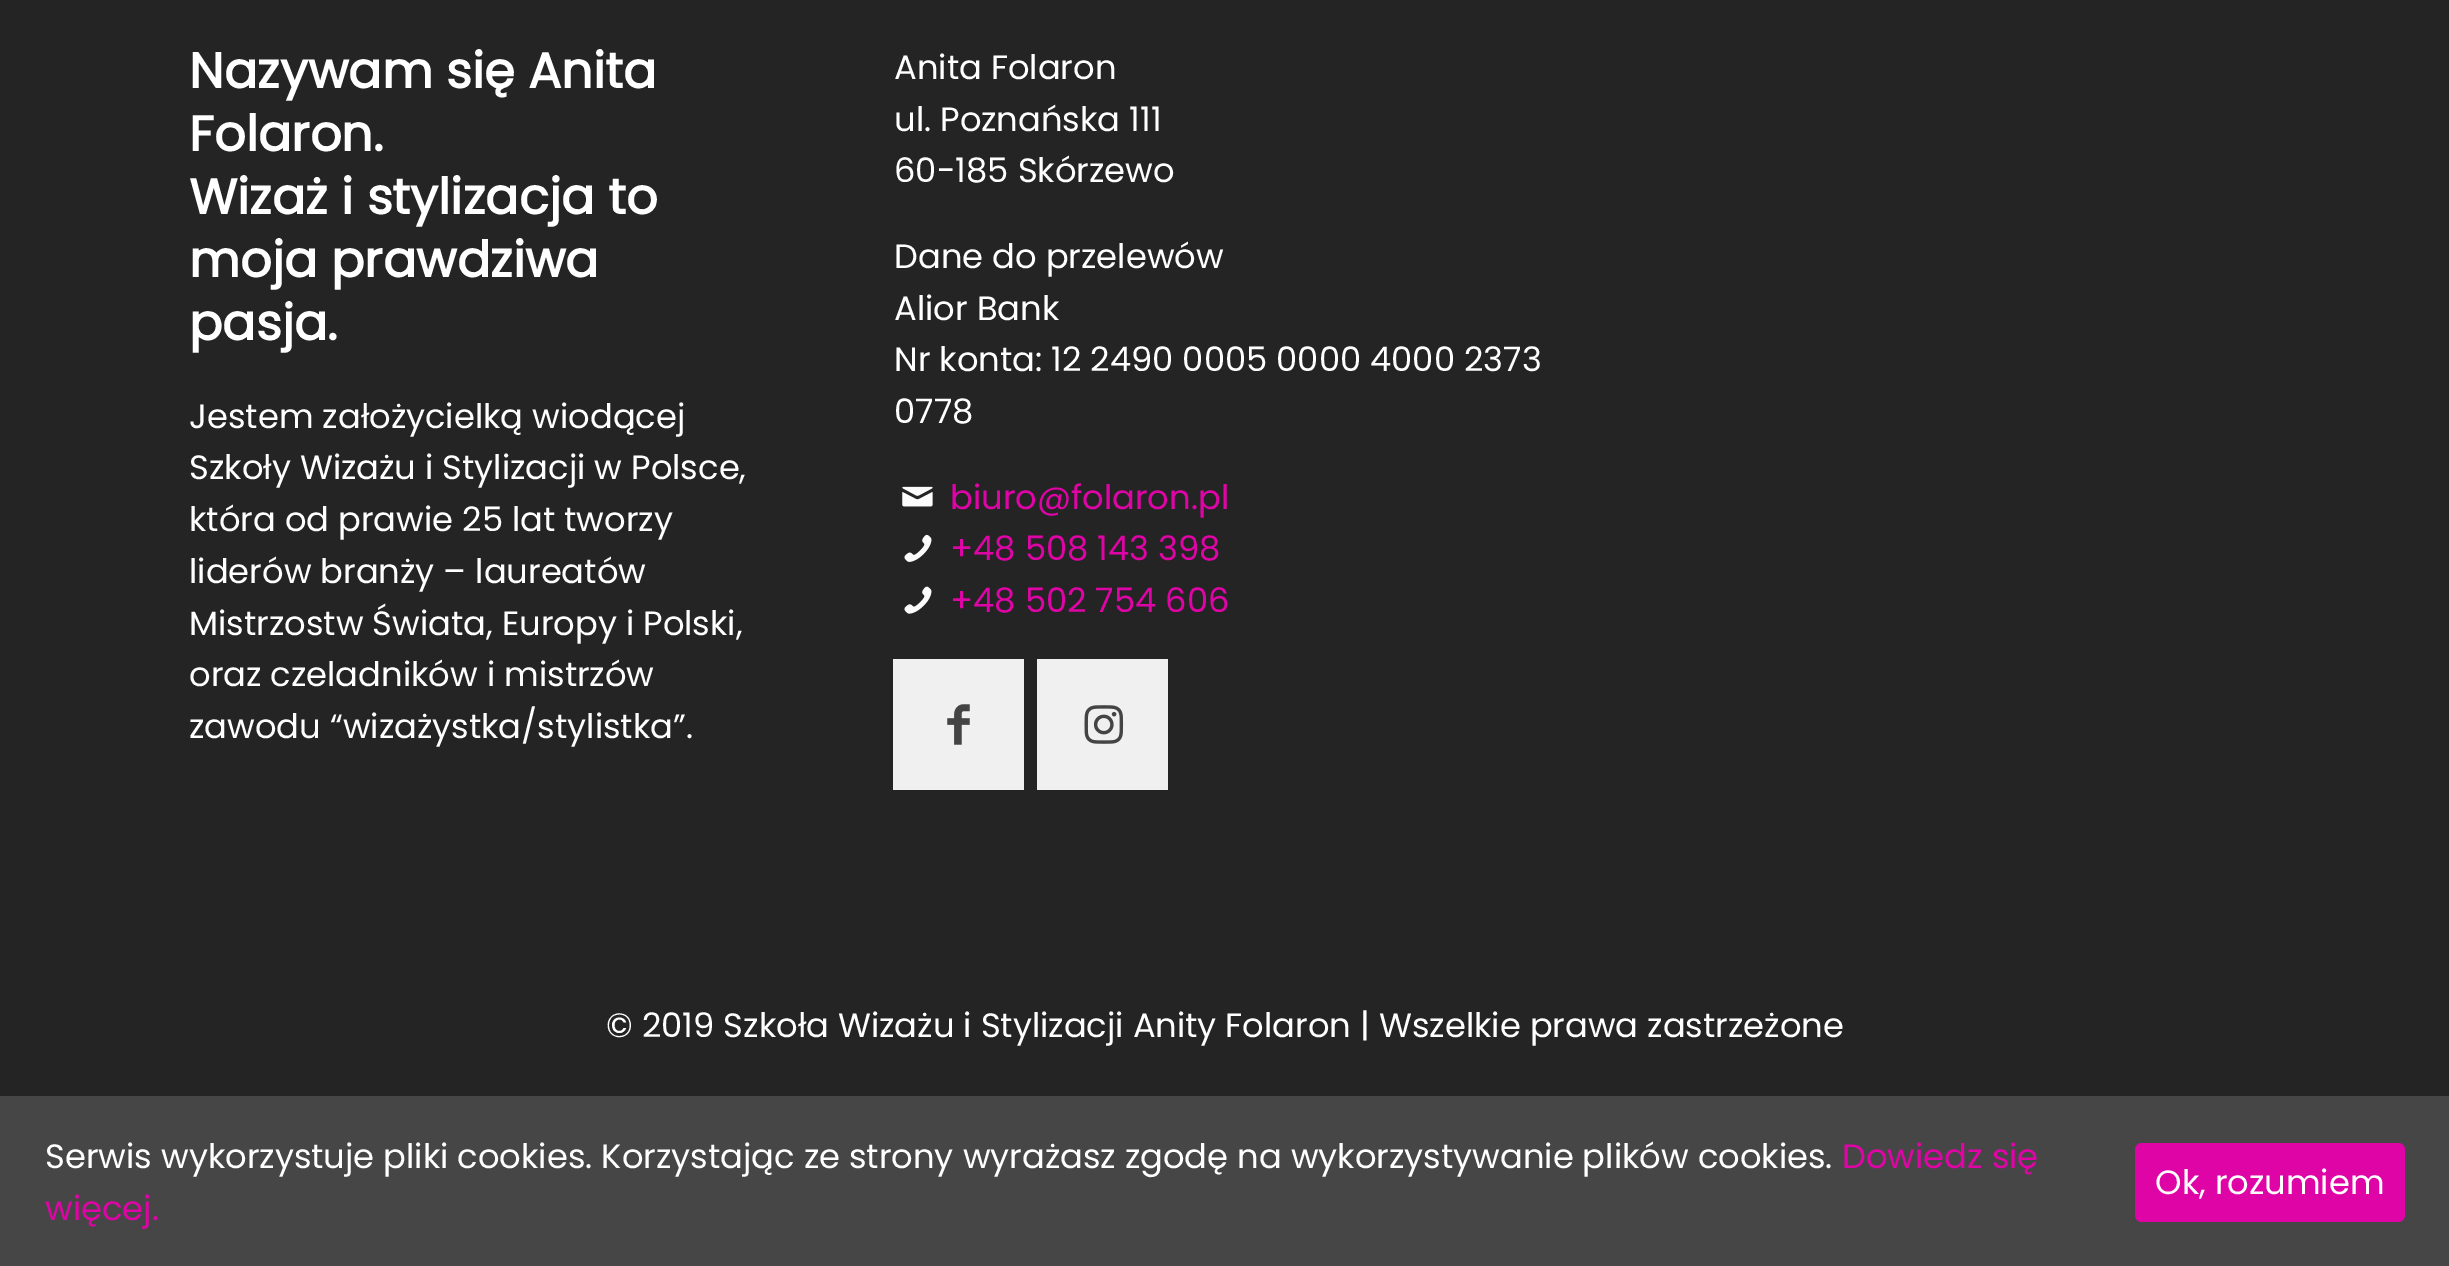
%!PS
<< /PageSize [2449 1266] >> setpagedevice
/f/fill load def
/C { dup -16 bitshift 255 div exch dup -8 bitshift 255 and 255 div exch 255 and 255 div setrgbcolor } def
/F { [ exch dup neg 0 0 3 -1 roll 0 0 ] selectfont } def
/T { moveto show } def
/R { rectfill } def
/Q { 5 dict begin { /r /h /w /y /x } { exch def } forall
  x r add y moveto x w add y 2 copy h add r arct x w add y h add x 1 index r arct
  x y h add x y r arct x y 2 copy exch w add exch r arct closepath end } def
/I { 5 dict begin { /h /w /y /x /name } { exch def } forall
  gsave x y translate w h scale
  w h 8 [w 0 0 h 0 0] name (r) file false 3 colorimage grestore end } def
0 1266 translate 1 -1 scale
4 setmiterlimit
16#242424 C
0 0 2449 1266 R
/Poppins-Bold 49.5 F
16#FFFFFF C
(Nazywam się Anita) 189 88 T
(Folaron.) 189 151 T
(Wizaż i stylizacja to) 189 214 T
(moja prawdziwa) 189 277 T
(pasja.) 189 340 T
/Poppins-Regular 33.75 F
(Jestem założycielką wiodącej) 189 428 T
(Szkoły Wizażu i Stylizacji w Polsce,) 189 479 T
(która od prawie 25 lat tworzy) 189 531 T
(liderów branży – laureatów) 189 583 T
(Mistrzostw Świata, Europy i Polski,) 189 635 T
(oraz czeladników i mistrzów) 189 686 T
(zawodu “wizażystka/stylistka”.) 189 738 T
(Anita Folaron) 894 79 T
(ul. Poznańska 111) 894 131 T
(60-185 Skórzewo) 894 182 T
(Dane do przelewów) 894 268 T
(Alior Bank) 894 320 T
(Nr konta: 12 2490 0005 0000 4000 2373) 894 371 T
(0778) 894 423 T
(1.rgb) 902 486 31 21 I
16#DF04A6 C
(biuro@folaron.pl) 950 509 T
(2.rgb) 904 534 28 28 I
(+48 508 143 398) 950 560 T
(3.rgb) 904 586 28 28 I
(+48 502 754 606) 950 612 T
16#F0F0F0 C
893 659 131 131 R
(4.rgb) 947 704 23 41 I
1037 659 131 131 R
(5.rgb) 1084 705 40 39 I
16#FFFFFF C
(© 2019 Szkoła Wizażu i Stylizacji Anity Folaron | Wszelkie prawa zastrzeżone) 606 1037 T
16#464646 C
0 1096 2449 170 R
16#FFFFFF C
(Serwis wykorzystuje pliki cookies. Korzystając ze strony wyrażasz zgodę na wykorzystywanie plików cookies.) 45 1168 T
16#DF04A6 C
(Dowiedz się) 1842 1168 T
(więcej.) 45 1220 T
2135 1143 270 79 7 Q f
16#FFFFFF C
(Ok, rozumiem) 2155 1194 T
showpage
